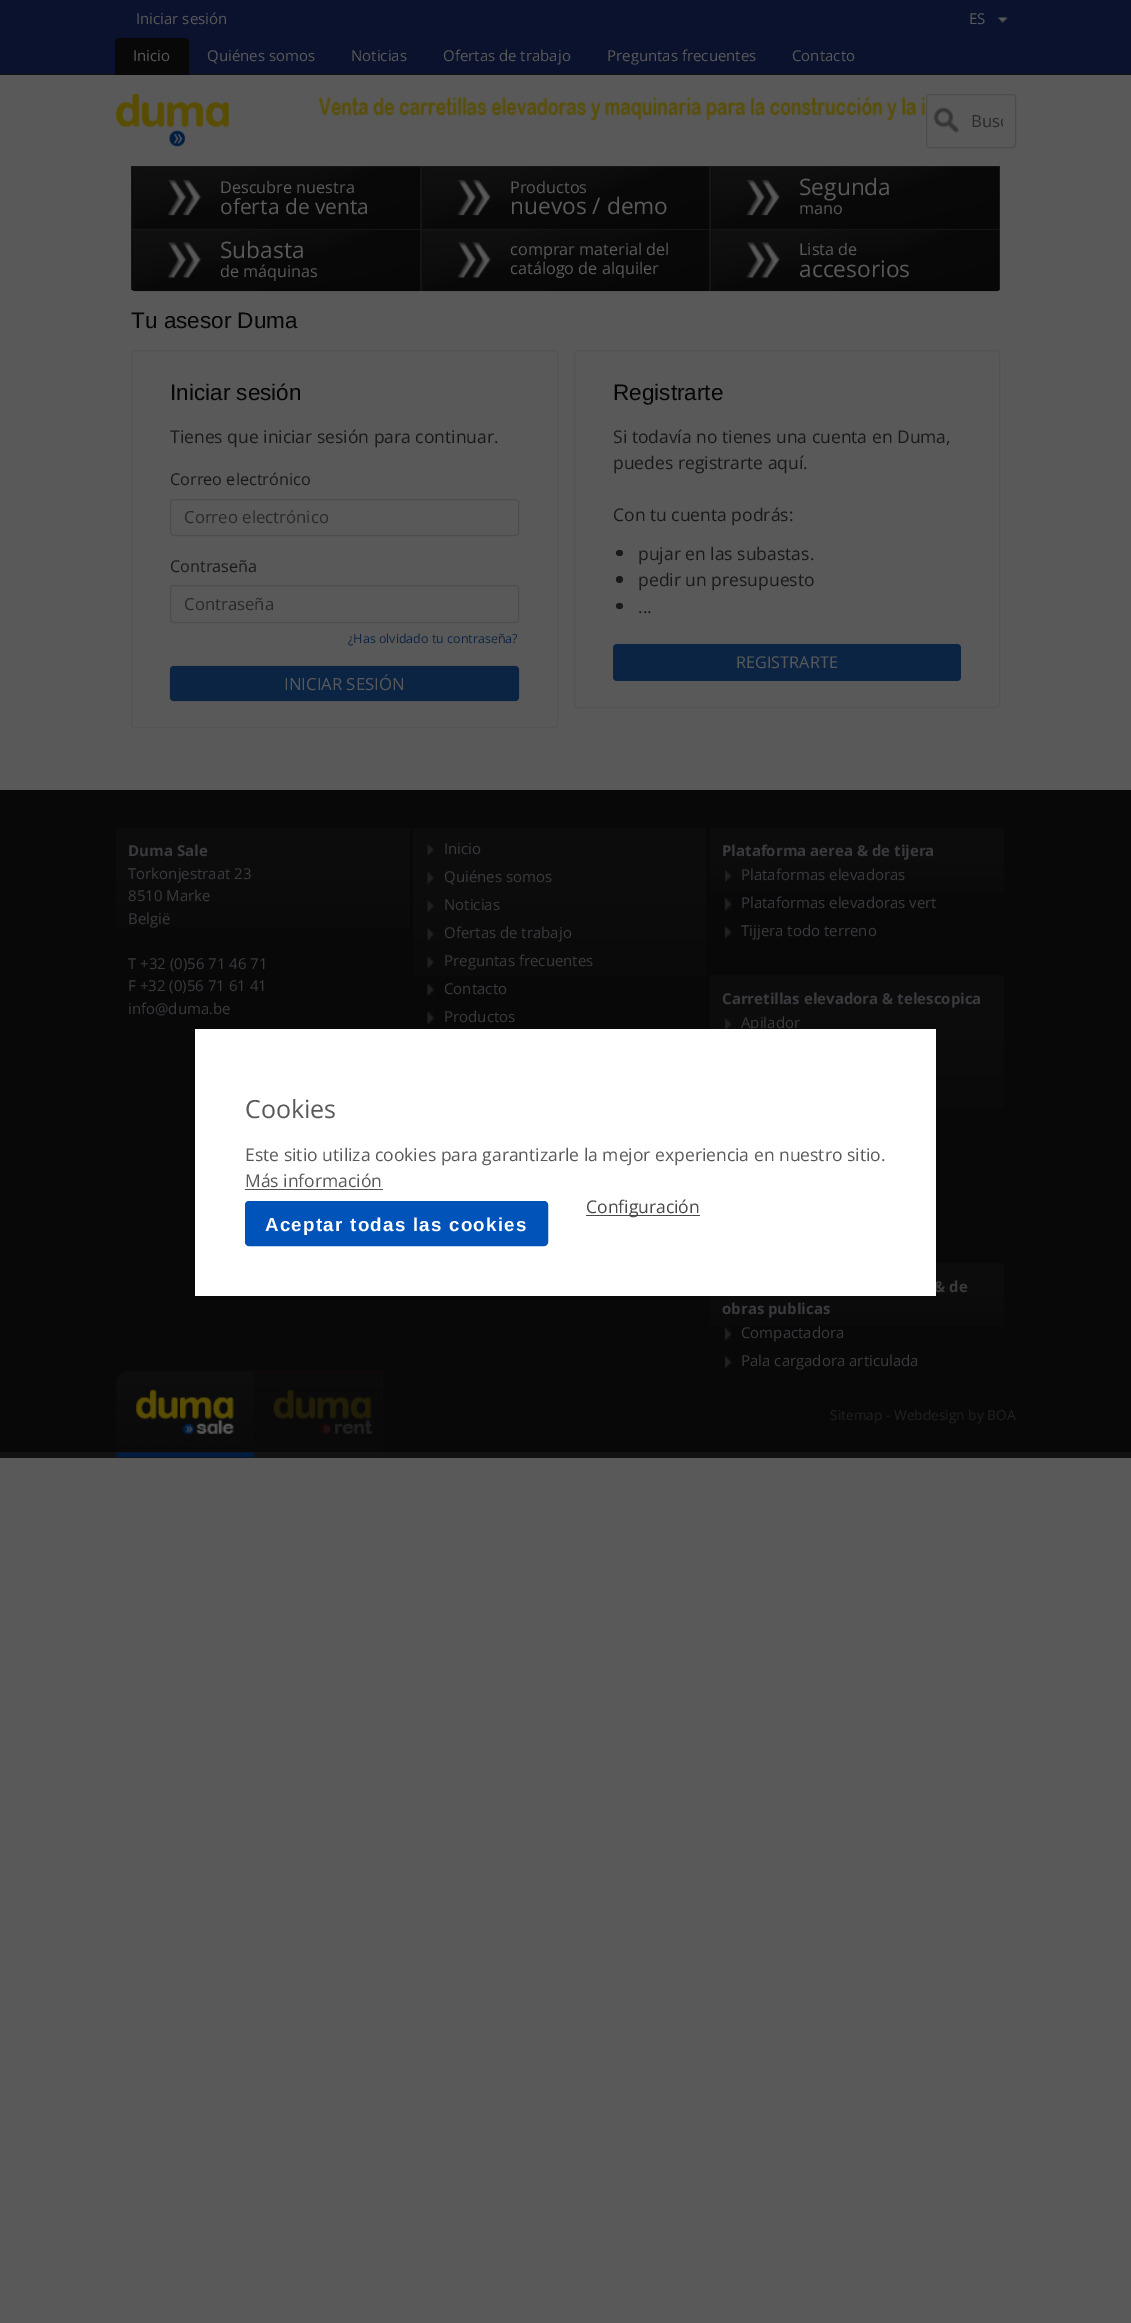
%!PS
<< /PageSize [1131 2323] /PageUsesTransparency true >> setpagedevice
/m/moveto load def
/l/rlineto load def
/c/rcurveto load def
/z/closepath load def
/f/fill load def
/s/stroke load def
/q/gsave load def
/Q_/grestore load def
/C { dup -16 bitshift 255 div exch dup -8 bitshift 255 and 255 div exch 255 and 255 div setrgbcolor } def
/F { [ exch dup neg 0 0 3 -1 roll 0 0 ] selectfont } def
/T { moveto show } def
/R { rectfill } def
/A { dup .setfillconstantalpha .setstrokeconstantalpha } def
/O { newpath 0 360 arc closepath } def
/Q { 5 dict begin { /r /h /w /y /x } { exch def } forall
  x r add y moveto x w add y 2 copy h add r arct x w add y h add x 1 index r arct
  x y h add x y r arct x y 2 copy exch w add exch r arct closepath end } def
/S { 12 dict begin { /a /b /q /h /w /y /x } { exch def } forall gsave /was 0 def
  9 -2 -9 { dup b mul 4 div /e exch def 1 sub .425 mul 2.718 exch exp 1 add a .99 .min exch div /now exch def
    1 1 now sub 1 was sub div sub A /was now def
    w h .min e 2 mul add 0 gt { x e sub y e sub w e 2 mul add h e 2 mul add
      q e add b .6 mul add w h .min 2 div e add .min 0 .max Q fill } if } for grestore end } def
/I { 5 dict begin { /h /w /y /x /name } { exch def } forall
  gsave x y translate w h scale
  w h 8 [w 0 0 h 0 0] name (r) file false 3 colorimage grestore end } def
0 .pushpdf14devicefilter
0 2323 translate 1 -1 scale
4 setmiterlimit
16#595959 C
0 0 1131 2323 R
16#0A122D C
0 0 1131 74 R
16#121212 C
0 74 1131 1 R
/OpenSans-Regular 15 F
16#595959 C
(Iniciar sesión) 136 24 T
(1.rgb) 997 17 11 6 I
(ES) 969 24 T
16#080809 C
119 38 m 66 0 l 2 0 4 2 4 4 c 0 33 l -74 0 l 0 -33 l 0 -2 2 -4 4 -4 c z f
16#595959 C
(Inicio) 133 61 T
(Quiénes somos) 207 61 T
(Noticias) 351 61 T
(Ofertas de trabajo) 443 61 T
(Preguntas frecuentes) 607 61 T
(Contacto) 792 61 T
(2.rgb) 116 93 113 54 I
(3.rgb) 318 97 608 24 I
(4.rgb) 933 107 26 26 I
16#4C4C4C C
926.5 94.5 89 53 3.5 Q s
q
971 110 32 23 rectclip
/OpenSans-Regular 16.75 F
16#292929 C
(Busc) 971 127 T
Q_
16#060606 C
132 167 288 62 R
(5.rgb) 132 167 288 62 I
16#151516 C
131 166 869 1 R
420 166 2 63 R
131 166 1 63 R
/OpenSans-Regular 16.25 F
16#595959 C
(Descubre nuestra) 220 193 T
/OpenSans-Regular 21 F
(oferta de venta) 220 214 T
16#060606 C
422 167 287 62 R
(6.rgb) 422 167 287 62 I
16#151516 C
709 166 2 63 R
/OpenSans-Regular 16.25 F
16#595959 C
(Productos) 510 193 T
/OpenSans-Regular 22.75 F
(nuevos / demo) 510 214 T
16#060606 C
711 167 288 62 R
(7.rgb) 711 167 288 62 I
16#151516 C
999 166 1 63 R
16#595959 C
(Segunda) 799 195 T
/OpenSans-Regular 16.25 F
(mano) 799 214 T
16#060606 C
131 229 m 290 0 l 0 62 l -286 0 l -2 0 -4 -2 -4 -4 c z f
(8.rgb) 132 228 290 64 I
16#151516 C
131 229 290 1 R
420 229 1 62 R
q
131 166 m 869 0 l 0 121 l 0 2 -2 4 -4 4 c -861 0 l -2 0 -4 -2 -4 -4 c z clip newpath
131 229 1 62 R
Q_
/OpenSans-Regular 22.75 F
16#595959 C
(Subasta) 220 258 T
/OpenSans-Regular 16.25 F
(de máquinas) 220 277 T
16#060606 C
422 230 1 61 R
(9.rgb) 422 228 288 64 I
16#151516 C
421 229 289 1 R
709 229 1 62 R
421 229 1 62 R
16#595959 C
(comprar material del) 510 255 T
(catálogo de alquiler) 510 274 T
(10.rgb) 711 228 289 64 I
16#151516 C
710 229 290 1 R
q
131 166 m 869 0 l 0 121 l 0 2 -2 4 -4 4 c -861 0 l -2 0 -4 -2 -4 -4 c z clip newpath
999 229 1 62 R
Q_
710 229 1 62 R
16#595959 C
(Lista de) 799 255 T
/OpenSans-Regular 22.75 F
(accesorios) 799 277 T
/LiberationSans-Regular 22.5 F
16#060606 C
(Tu asesor Duma) 131 328 T
16#535353 C
131.5 350.5 426 377 3.5 Q s
16#060606 C
(Iniciar sesión) 170 400 T
/OpenSans-Regular 17.5 F
16#19191B C
(Tienes que iniciar sesión para continuar.) 170 443 T
/OpenSans-Regular 16.25 F
(Correo electrónico) 170 485 T
16#4D4D4D C
170.5 499.5 348 36 3.5 Q s
/OpenSans-Regular 16.75 F
16#292929 C
(Correo electrónico) 184 523 T
/OpenSans-Regular 16.25 F
16#19191B C
(Contraseña) 170 572 T
16#4D4D4D C
170.5 585.5 348 37 3.5 Q s
/OpenSans-Regular 16.75 F
16#292929 C
(Contraseña) 184 610 T
/OpenSans-Regular 12.5 F
16#0C2443 C
(¿Has olvidado tu contraseña?) 348 643 T
16#000000 C
170 666 349 35 4 .5 .2 S
16#0C2443 C
170 666 349 35 4 Q f
/OpenSans-Regular 16.75 F
16#595959 C
(INICIAR SESIÓN) 284 690 T
16#535353 C
574.5 350.5 425 357 3.5 Q s
/LiberationSans-Regular 22.5 F
16#060606 C
(Registrarte) 613 400 T
/OpenSans-Regular 17.5 F
16#19191B C
(Si todavía no tienes una cuenta en Duma,) 613 443 T
(puedes registrarte aquí.) 613 469 T
(Con tu cuenta podrás:) 613 521 T
616 550 7 6 3 Q f
(pujar en las subastas.) 638 560 T
619.5 579.5 3.5 O f
(pedir un presupuesto) 638 586 T
616 603 7 6 3 Q f
(...) 638 613 T
16#0C2443 C
613 644 348 37 4 Q f
/OpenSans-Regular 16.25 F
16#595959 C
(REGISTRARTE) 736 668 T
16#080809 C
0 790 1131 662 R
16#121212 C
0 1452 1131 6 R
q 116 828 m 294 0 l 0 99 l -294 0 l z clip newpath
<< /ShadingType 2 /ColorSpace /DeviceRGB /Coords [263 1033 263 828] /Extend [true true] /Function << /FunctionType 3 /Domain [0 1] /Functions [<< /FunctionType 2 /Domain [0 1] /C0 [.035 .035 .035] /C1 [.035 .035 .035] /N 1 >> << /FunctionType 2 /Domain [0 1] /C0 [.035 .035 .035] /C1 [.047 .047 .051] /N 1 >> << /FunctionType 2 /Domain [0 1] /C0 [.047 .047 .051] /C1 [.047 .047 .051] /N 1 >>] /Bounds [.22 .81] /Encode [0 1 0 1 0 1] >> >> shfill Q_
/OpenSans-Bold 15 F
16#3A3A3E C
(Duma Sale) 128 856 T
/OpenSans-Regular 15 F
(Torkonjestraat 23) 128 879 T
(8510 Marke) 128 901 T
(België) 128 924 T
(T +32 \(0\)56 71 46 71) 128 969 T
(F +32 \(0\)56 71 61 41) 128 991 T
(info@duma.be) 128 1014 T
q 413 828 m 293 0 l 0 148 l -293 0 l z clip newpath
<< /ShadingType 2 /ColorSpace /DeviceRGB /Coords [559 1133 559 828] /Extend [true true] /Function << /FunctionType 3 /Domain [0 1] /Functions [<< /FunctionType 2 /Domain [0 1] /C0 [.035 .035 .035] /C1 [.035 .035 .035] /N 1 >> << /FunctionType 2 /Domain [0 1] /C0 [.035 .035 .035] /C1 [.047 .047 .051] /N 1 >> << /FunctionType 2 /Domain [0 1] /C0 [.047 .047 .051] /C1 [.047 .047 .051] /N 1 >>] /Bounds [.22 .81] /Encode [0 1 0 1 0 1] >> >> shfill Q_
(11.rgb) 427 843 7 13 I
(Inicio) 444 854 T
(12.rgb) 427 871 7 14 I
(Quiénes somos) 444 882 T
(13.rgb) 427 900 7 12 I
(Noticias) 444 910 T
(14.rgb) 427 927 7 14 I
(Ofertas de trabajo) 444 938 T
(15.rgb) 427 956 7 13 I
(Preguntas frecuentes) 444 966 T
(16.rgb) 427 983 7 13 I
(Contacto) 444 994 T
(17.rgb) 427 1011 7 14 I
(Productos) 444 1022 T
q 710 828 m 294 0 l 0 65 l -294 0 l z clip newpath
<< /ShadingType 2 /ColorSpace /DeviceRGB /Coords [857 963 857 828] /Extend [true true] /Function << /FunctionType 3 /Domain [0 1] /Functions [<< /FunctionType 2 /Domain [0 1] /C0 [.035 .035 .035] /C1 [.035 .035 .035] /N 1 >> << /FunctionType 2 /Domain [0 1] /C0 [.035 .035 .035] /C1 [.047 .047 .051] /N 1 >> << /FunctionType 2 /Domain [0 1] /C0 [.047 .047 .051] /C1 [.047 .047 .051] /N 1 >>] /Bounds [.22 .81] /Encode [0 1 0 1 0 1] >> >> shfill Q_
/OpenSans-Bold 15 F
(Plataforma aerea & de tijera) 722 856 T
(18.rgb) 725 870 7 12 I
/OpenSans-Regular 15 F
(Plataformas elevadoras) 741 880 T
(19.rgb) 724 897 8 14 I
(Plataformas elevadoras vert) 741 908 T
(20.rgb) 724 926 8 13 I
(Tijjera todo terreno) 741 936 T
q 710 975 m 294 0 l 0 133 l -294 0 l z clip newpath
<< /ShadingType 2 /ColorSpace /DeviceRGB /Coords [857 1250 857 975] /Extend [true true] /Function << /FunctionType 3 /Domain [0 1] /Functions [<< /FunctionType 2 /Domain [0 1] /C0 [.035 .035 .035] /C1 [.035 .035 .035] /N 1 >> << /FunctionType 2 /Domain [0 1] /C0 [.035 .035 .035] /C1 [.047 .047 .051] /N 1 >> << /FunctionType 2 /Domain [0 1] /C0 [.047 .047 .051] /C1 [.047 .047 .051] /N 1 >>] /Bounds [.22 .81] /Encode [0 1 0 1 0 1] >> >> shfill Q_
/OpenSans-Bold 15 F
(Carretillas elevadora & telescopica) 722 1004 T
(21.rgb) 725 1017 7 12 I
/OpenSans-Regular 15 F
(Apilador) 741 1028 T
q 710 1263 m 294 0 l 0 63 l -294 0 l z clip newpath
<< /ShadingType 2 /ColorSpace /DeviceRGB /Coords [857 1393 857 1263] /Extend [true true] /Function << /FunctionType 3 /Domain [0 1] /Functions [<< /FunctionType 2 /Domain [0 1] /C0 [.035 .035 .035] /C1 [.035 .035 .035] /N 1 >> << /FunctionType 2 /Domain [0 1] /C0 [.035 .035 .035] /C1 [.047 .047 .051] /N 1 >> << /FunctionType 2 /Domain [0 1] /C0 [.047 .047 .051] /C1 [.047 .047 .051] /N 1 >>] /Bounds [.22 .81] /Encode [0 1 0 1 0 1] >> >> shfill Q_
/OpenSans-Bold 15 F
(& de) 934 1292 T
(obras publicas) 722 1314 T
(22.rgb) 724 1327 8 14 I
/OpenSans-Regular 15 F
(Compactadora) 741 1338 T
(23.rgb) 724 1356 8 13 I
(Pala cargadora articulada) 741 1366 T
(24.rgb) 116 1371 138 87 I
(25.rgb) 253 1371 130 86 I
/OpenSans-Regular 13.75 F
16#212124 C
(Sitemap - Webdesign by BOA) 830 1420 T
16#FFFFFF C
195 1029 741 267 R
/OpenSans-Regular 25 F
16#595959 C
(Cookies) 245 1118 T
/OpenSans-Regular 17.5 F
(Este sitio utiliza cookies para garantizarle la mejor experiencia en nuestro sitio.) 245 1161 T
(Más información) 245 1187 T
16#555555 C
245 1189 138 1 R
16#48484C C
586 1215 114 1 R
(Configuración) 586 1213 T
16#0053B9 C
245.5 1201.5 302 44 3.5 Q q f Q_
s
/LiberationSans-Bold 18.75 F
16#FFFFFF C
265 1231 m 1.25 0 (Aceptar todas las cookies) ashow
.poppdf14devicefilter showpage
